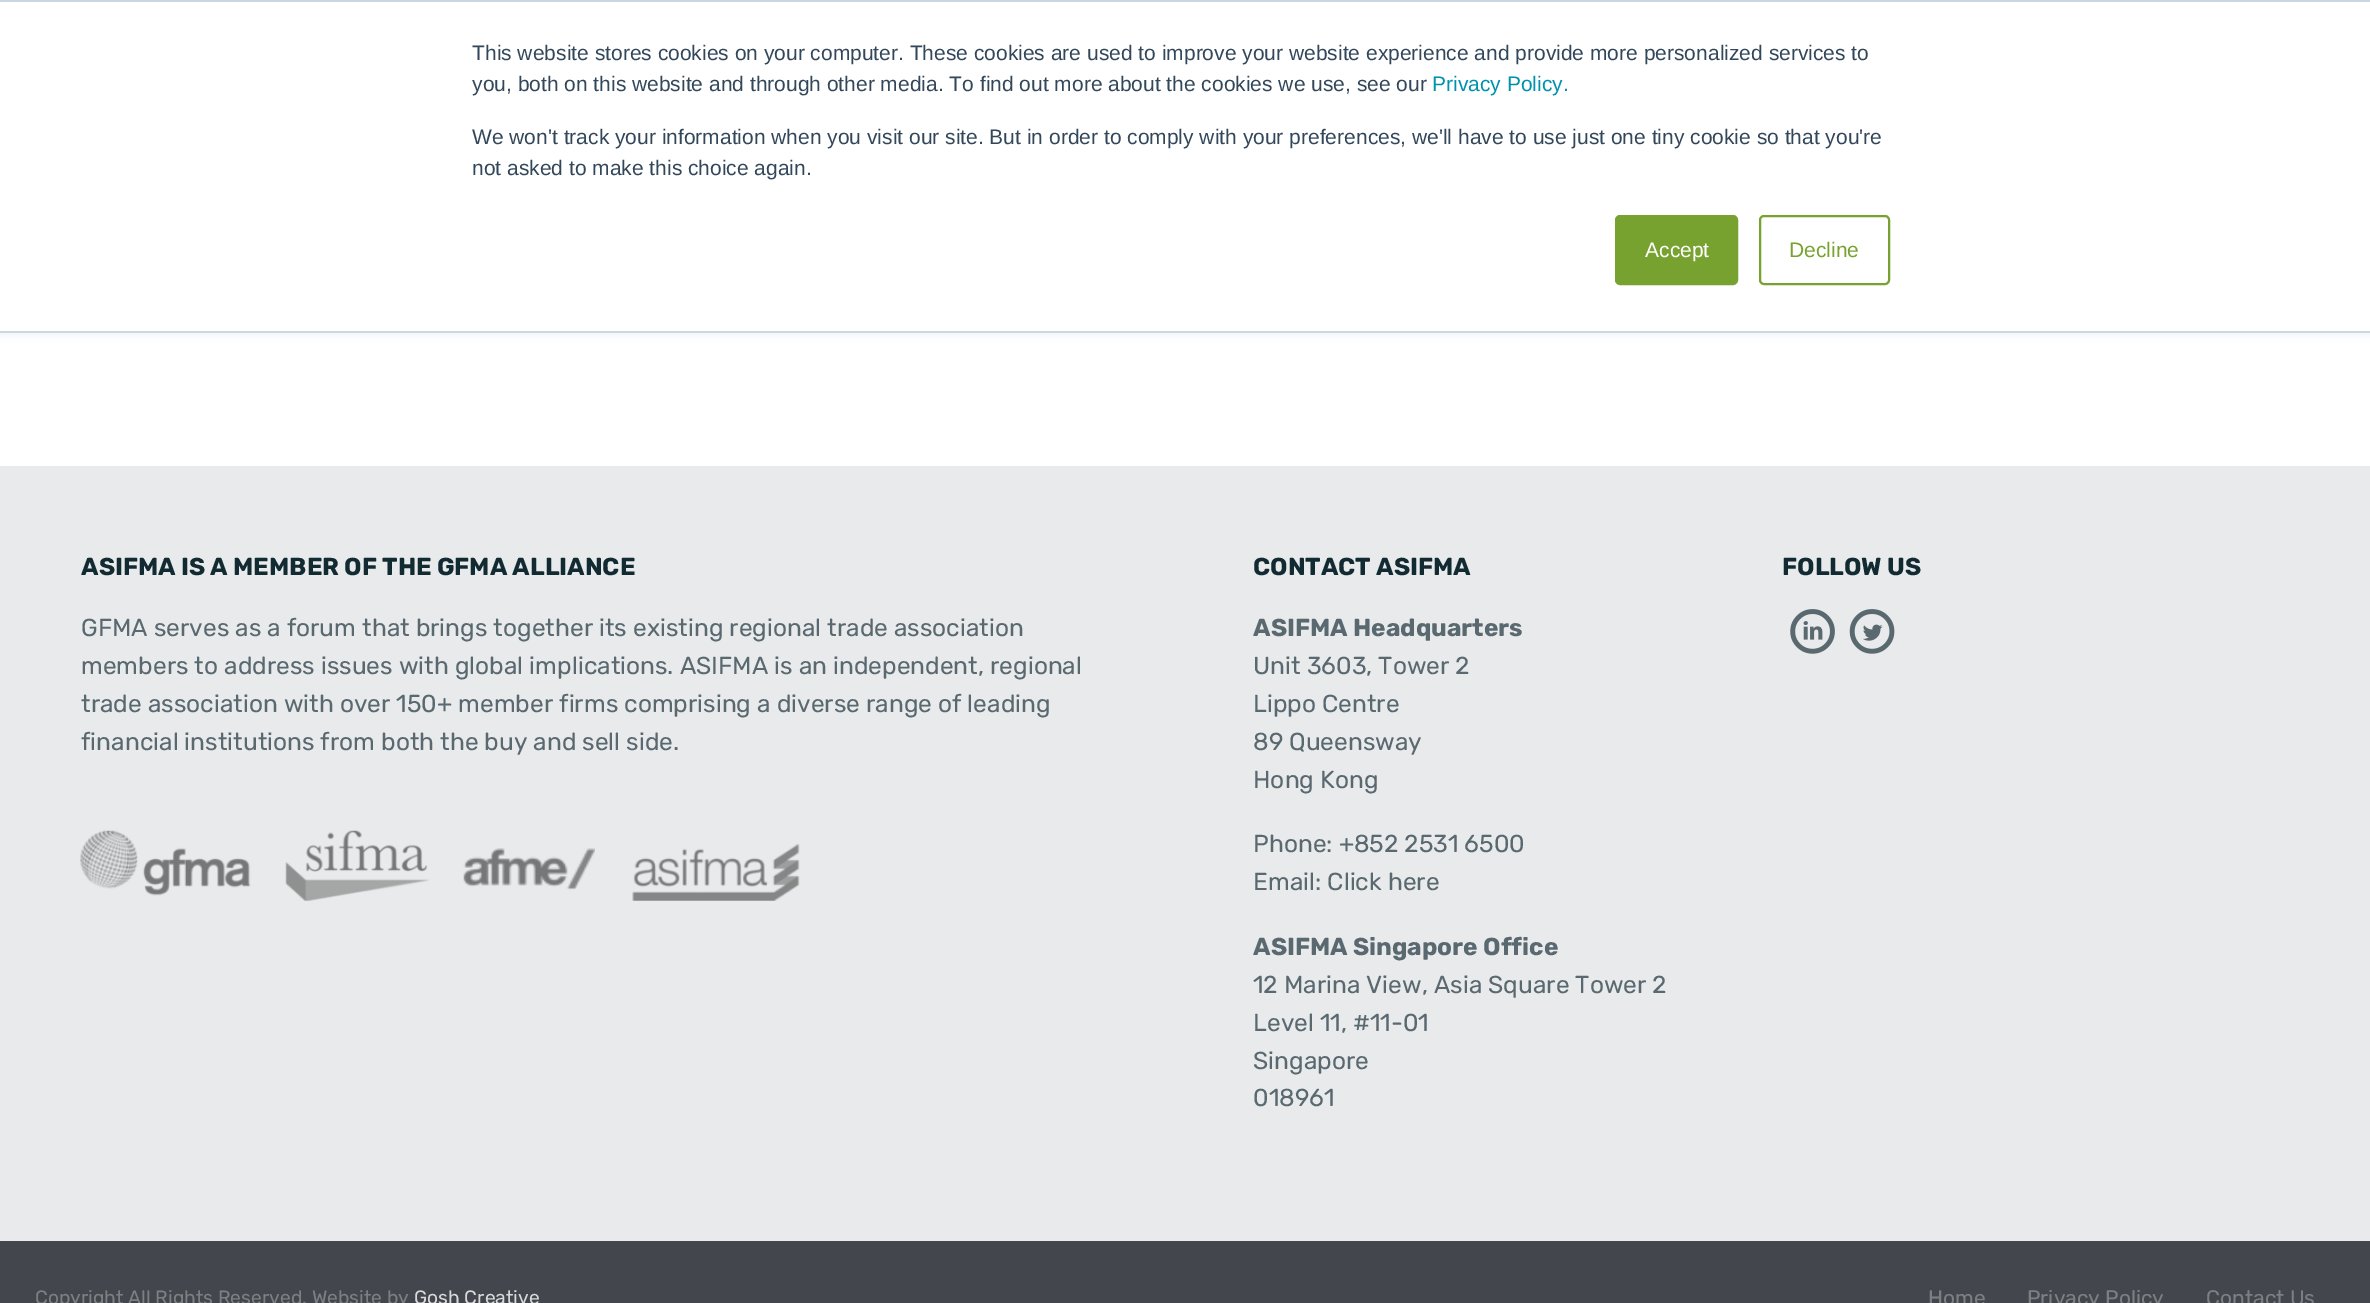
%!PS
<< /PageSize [2370 1303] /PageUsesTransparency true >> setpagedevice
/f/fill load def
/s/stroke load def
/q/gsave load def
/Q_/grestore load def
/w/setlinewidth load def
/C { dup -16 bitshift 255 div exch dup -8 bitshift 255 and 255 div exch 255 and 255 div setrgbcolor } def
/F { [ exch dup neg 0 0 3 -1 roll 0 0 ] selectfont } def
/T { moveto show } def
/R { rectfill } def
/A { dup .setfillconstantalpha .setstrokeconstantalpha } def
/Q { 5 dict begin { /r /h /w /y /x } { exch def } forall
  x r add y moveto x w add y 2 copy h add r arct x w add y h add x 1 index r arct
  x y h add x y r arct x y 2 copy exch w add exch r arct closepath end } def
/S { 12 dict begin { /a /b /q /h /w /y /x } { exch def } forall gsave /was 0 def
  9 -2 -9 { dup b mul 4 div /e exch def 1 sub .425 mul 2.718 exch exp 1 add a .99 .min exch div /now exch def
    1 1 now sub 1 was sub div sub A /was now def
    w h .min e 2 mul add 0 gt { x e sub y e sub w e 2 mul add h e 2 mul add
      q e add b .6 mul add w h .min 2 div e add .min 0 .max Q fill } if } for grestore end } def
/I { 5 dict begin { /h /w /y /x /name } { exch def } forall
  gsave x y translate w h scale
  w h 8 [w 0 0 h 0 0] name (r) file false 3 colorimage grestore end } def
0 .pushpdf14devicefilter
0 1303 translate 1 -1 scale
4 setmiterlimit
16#E8EAEB C
0 0 2370 1303 R
16#FFFFFF C
0 333 2370 133 R
16#EAF0F6 C
0 2 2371 332 0 4.5 1 S
16#FFFFFF C
0 2 2370 329 R
16#CBD6E2 C
0 0 2370 2 R
0 331 2370 2 R
/LiberationSans-Regular 21 F
16#33475B C
(This website stores cookies on your computer. These cookies are used to improve your website experience and provide more personalized services to) 472 60 T
(you, both on this website and through other media. To find out more about the cookies we use, see our) 472 91 T
16#0091AE C
(Privacy Policy.) 1432 91 T
16#33475B C
(We won't track your information when you visit our site. But in order to comply with your preferences, we'll have to use just one tiny cookie so that you're) 472 144 T
(not asked to make this choice again.) 472 175 T
16#78A22F C
1616 216 121 68 4 Q q f Q_
2 w
s
16#FFFFFF C
(Accept) 1645 257 T
16#78A22F C
1760 216 129 68 4 Q s
(Decline) 1789 257 T
/Rubik-Bold 24.5 F
16#122A32 C
(ASIFMA IS A MEMBER OF THE GFMA ALLIANCE) 81 575 T
/Rubik-Regular 24.5 F
16#5A6870 C
(GFMA serves as a forum that brings together its existing regional trade association) 81 636 T
(members to address issues with global implications. ASIFMA is an independent, regional) 81 674 T
(trade association with over 150+ member firms comprising a diverse range of leading) 81 712 T
(financial institutions from both the buy and sell side.) 81 750 T
(1.rgb) 80 830 171 66 I
(2.rgb) 285 830 144 71 I
(3.rgb) 463 848 132 42 I
(4.rgb) 632 843 168 58 I
/Rubik-Bold 24.5 F
16#122A32 C
(CONTACT ASIFMA) 1253 575 T
16#5A6870 C
(ASIFMA Headquarters) 1253 636 T
/Rubik-Regular 24.5 F
(Unit 3603, Tower 2) 1253 674 T
(Lippo Centre) 1253 712 T
(89 Queensway) 1253 750 T
(Hong Kong) 1253 788 T
(Phone: +852 2531 6500) 1253 852 T
(Email: Click here) 1253 890 T
/Rubik-Bold 24.5 F
(ASIFMA Singapore Office) 1253 955 T
/Rubik-Regular 24.5 F
(12 Marina View, Asia Square Tower 2) 1253 993 T
(Level 11, #11-01) 1253 1031 T
(Singapore) 1253 1069 T
(018961) 1253 1106 T
/Rubik-Bold 24.5 F
16#122A32 C
(FOLLOW US) 1782 575 T
(5.rgb) 1790 609 45 45 I
(6.rgb) 1849 609 46 45 I
16#43474D C
0 1241 2370 62 R
/Rubik-Regular 19.25 F
16#7D8083 C
(Copyright All Rights Reserved. Website by) 35 1304 T
16#D9DADB C
(Gosh Creative) 414 1304 T
/Rubik-Regular 21 F
16#7D8083 C
(Home) 1928 1305 T
(Privacy Policy) 2027 1305 T
(Contact Us) 2206 1305 T
.poppdf14devicefilter showpage
